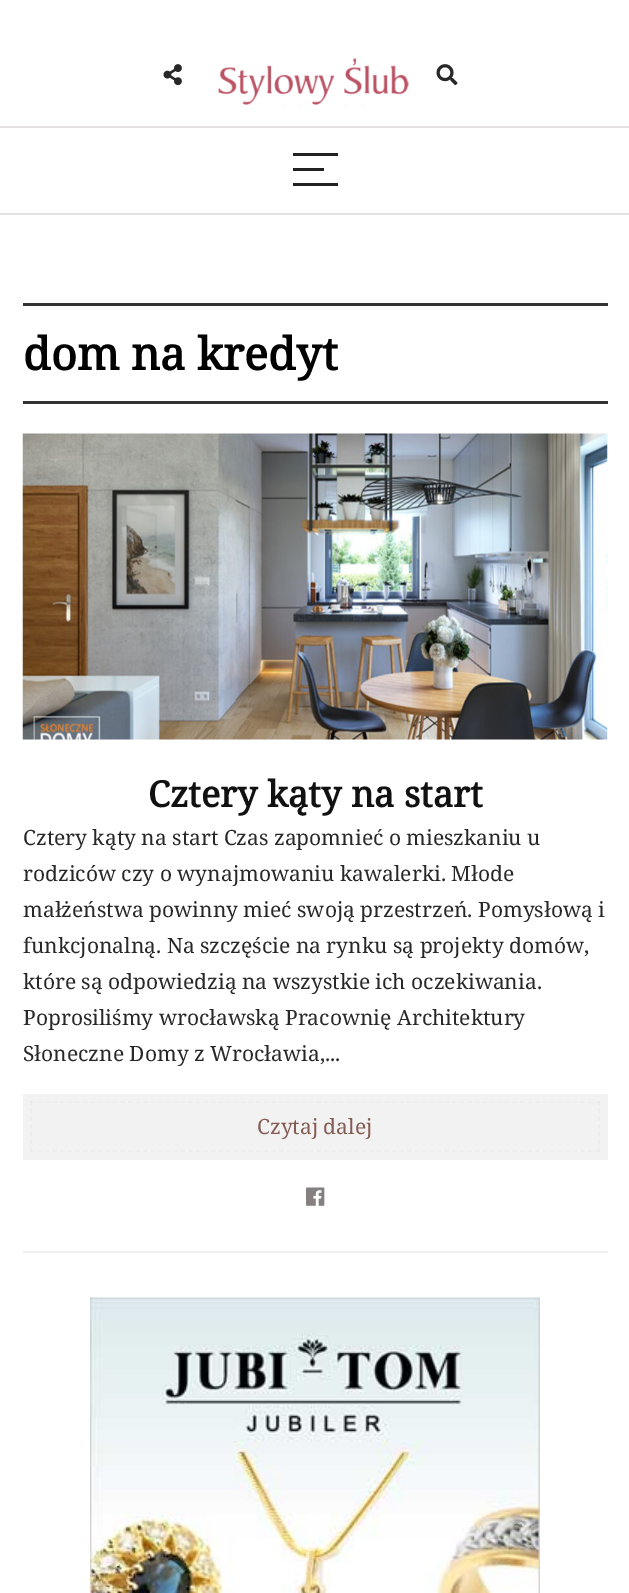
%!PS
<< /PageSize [629 1593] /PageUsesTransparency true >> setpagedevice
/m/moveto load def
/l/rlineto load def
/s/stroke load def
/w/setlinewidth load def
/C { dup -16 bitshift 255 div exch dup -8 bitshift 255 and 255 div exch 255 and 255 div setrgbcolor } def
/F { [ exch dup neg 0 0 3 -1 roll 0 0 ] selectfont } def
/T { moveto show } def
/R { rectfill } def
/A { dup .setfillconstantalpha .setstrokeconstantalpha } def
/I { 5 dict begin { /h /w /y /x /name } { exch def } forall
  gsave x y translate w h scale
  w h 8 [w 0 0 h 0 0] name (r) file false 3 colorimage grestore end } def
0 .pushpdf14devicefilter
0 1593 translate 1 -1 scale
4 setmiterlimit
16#FFFFFF C
0 0 629 1593 R
(1.rgb) 163 64 19 22 I
(2.rgb) 218 58 191 49 I
(3.rgb) 436 64 22 22 I
16#E4E1E1 C
0 126 629 2 R
0 213 629 2 R
16#222222 C
293 153 45 3 R
293 168 31 3 R
293 183 45 3 R
16#333333 C
23 303 585 3 R
23 401 585 3 R
/NotoSerif-Bold 45 F
16#000000 C
(dom na kredyt) 23 370 T
16#EEEEEE C
23 1251 585 2 R
(4.rgb) 22 433 586 307 I
/NotoSerif-Bold 36 F
16#111111 C
(Cztery kąty na start) 148 807 T
/NotoSerif-Regular 21 F
16#282828 C
(Cztery kąty na start Czas zapomnieć o mieszkaniu u) 23 845 T
(rodziców czy o wynajmowaniu kawalerki. Młode) 23 881 T
(małżeństwa powinny mieć swoją przestrzeń. Pomysłową i) 23 917 T
(funkcjonalną. Na szczęście na rynku są projekty domów,) 23 953 T
(które są odpowiedzią na wszystkie ich oczekiwania.) 23 989 T
(Poprosiliśmy wrocławską Pracownię Architektury) 23 1025 T
(Słoneczne Domy z Wrocławia,...) 23 1061 T
16#F2F2F2 C
23 1094 585 66 R
16#EDECEC C
1.5 w
[4.5 3.04] 0 setdash
30 1102 m 570 0 l s
0.3 A
16#E0DDDD C
[4.5 3.25] 0 setdash
599 1101 m 0 51 l s
[4.5 3.04] 0 setdash
30 1151 m 570 0 l s
[4.5 3.25] 0 setdash
31 1101 m 0 51 l s
1 A
16#845C54 C
(Czytaj dalej) 257 1134 T
(5.rgb) 306 1187 19 19 I
(6.rgb) 90 1297 450 296 I
.poppdf14devicefilter showpage
